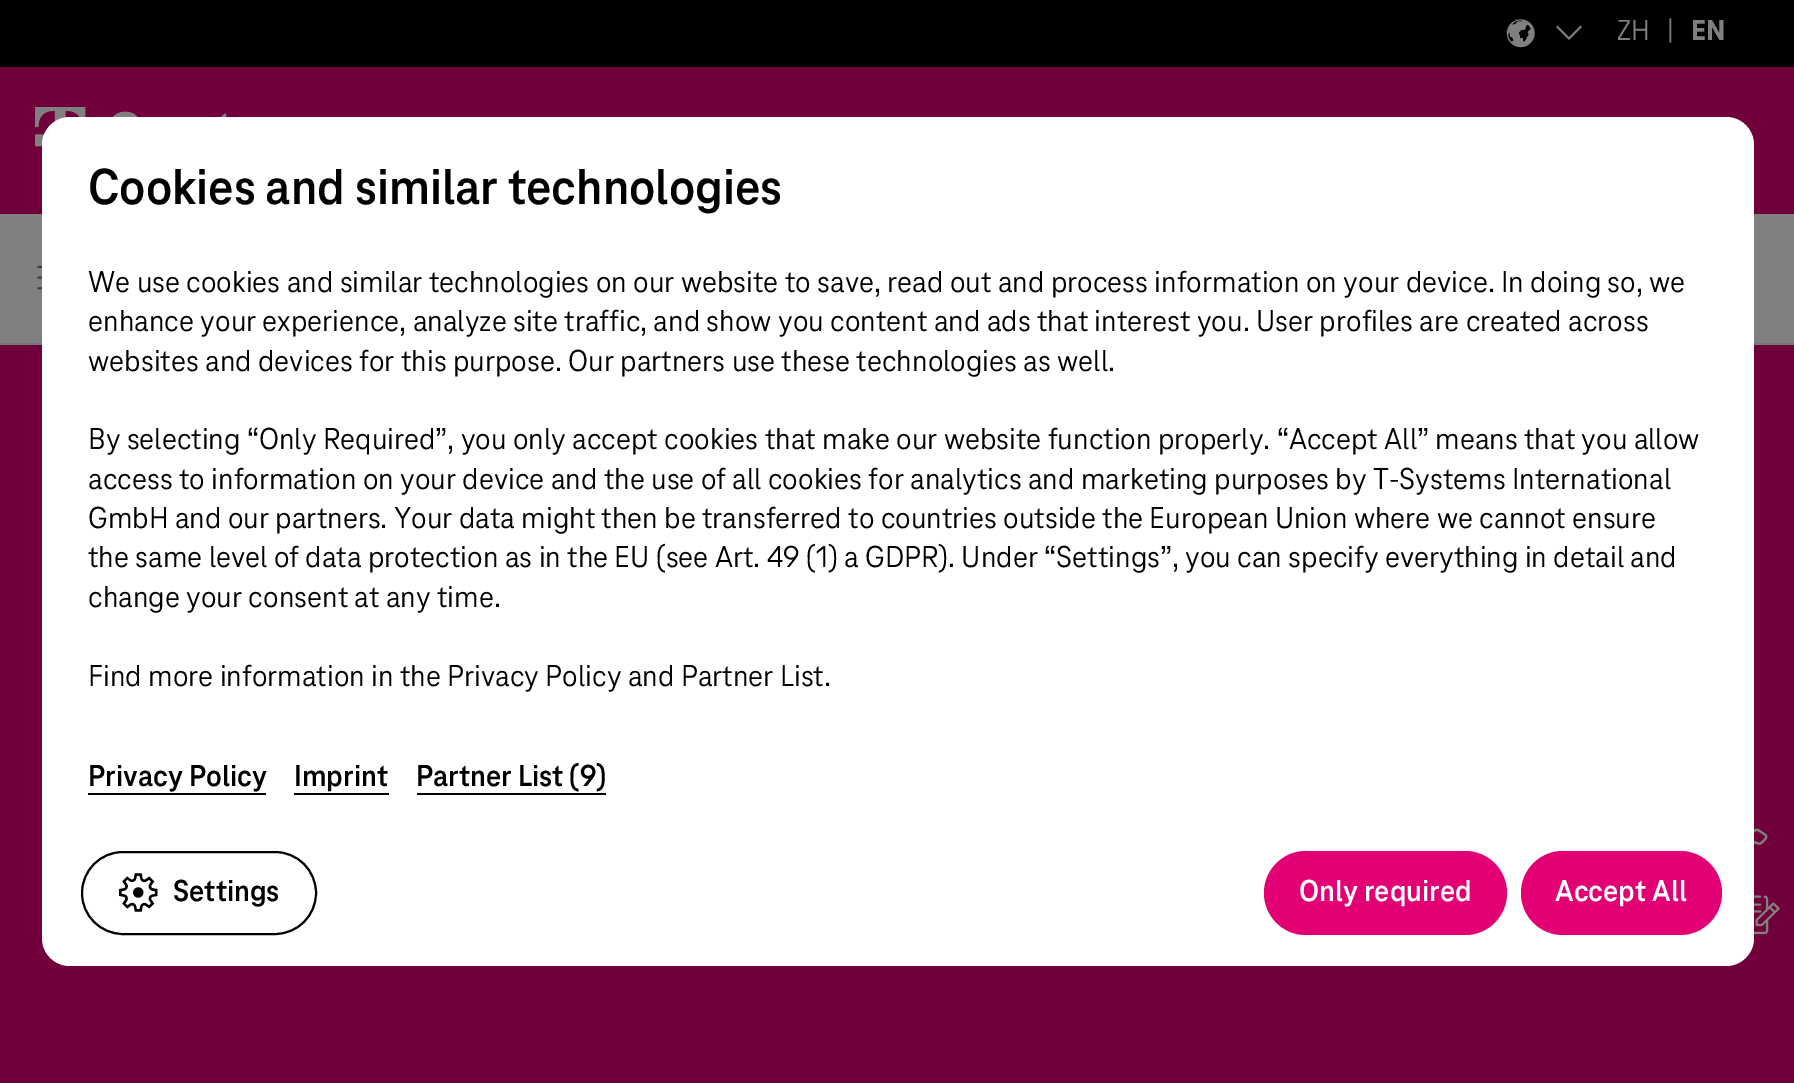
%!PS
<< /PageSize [1794 1083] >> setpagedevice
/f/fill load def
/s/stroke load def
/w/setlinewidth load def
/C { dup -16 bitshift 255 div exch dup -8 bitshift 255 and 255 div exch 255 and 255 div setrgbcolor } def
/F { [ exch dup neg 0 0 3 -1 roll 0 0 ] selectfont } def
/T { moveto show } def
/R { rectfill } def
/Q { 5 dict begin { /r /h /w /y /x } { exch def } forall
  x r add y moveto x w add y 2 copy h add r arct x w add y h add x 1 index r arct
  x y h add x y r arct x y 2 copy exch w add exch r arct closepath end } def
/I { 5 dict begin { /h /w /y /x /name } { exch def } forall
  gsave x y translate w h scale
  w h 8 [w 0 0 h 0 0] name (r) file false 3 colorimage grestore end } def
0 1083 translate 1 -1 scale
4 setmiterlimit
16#808080 C
0 0 1794 1083 R
16#000000 C
0 0 1794 67 R
(1.rgb) 1506 19 29 29 I
(2.rgb) 1556 25 26 15 I
/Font-Regular 30 F
16#808080 C
(ZH) 1617 40 T
(|) 1667 40 T
/Font-ExtraBold 30 F
(EN) 1691 40 T
16#71003A C
0 67 1794 147 R
(3.rgb) 35 107 192 40 I
16#777777 C
0 343 1794 2 R
16#71003A C
0 345 1794 738 R
16#FFFFFF C
42 117 1712 849 28 Q f
/Font-Bold 52.5 F
16#000000 C
(Cookies and similar technologies) 88 204 T
/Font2-Regular 31.5 F
(We use cookies and similar technologies on our website to save, read out and process information on your device. In doing so, we) 88 292 T
(enhance your experience, analyze site traffic, and show you content and ads that interest you. User profiles are created across) 88 331 T
(websites and devices for this purpose. Our partners use these technologies as well.) 88 371 T
(By selecting “Only Required”, you only accept cookies that make our website function properly. “Accept All” means that you allow) 88 449 T
(access to information on your device and the use of all cookies for analytics and marketing purposes by T-Systems International) 88 489 T
(GmbH and our partners. Your data might then be transferred to countries outside the European Union where we cannot ensure) 88 528 T
(the same level of data protection as in the EU \(see Art. 49 \(1\) a GDPR\). Under “Settings”, you can specify everything in detail and) 88 567 T
(change your consent at any time.) 88 607 T
(Find more information in the Privacy Policy and Partner List.) 88 686 T
/Font-Bold 31.5 F
(Privacy Policy) 88 786 T
88 793 178 2 R
(Imprint) 294 786 T
294 793 95 2 R
(Partner List \(9\)) 416 786 T
417 793 189 2 R
2 w
82 852 234 82 41 Q s
(4.rgb) 119 873 39 39 I
(Settings) 173 901 T
16#E20074 C
1264 851 243 84 42 Q f
16#FFFFFF C
(Only required) 1299 901 T
16#E20074 C
1521 851 201 84 42 Q f
16#FFFFFF C
(Accept All) 1555 901 T
(5.rgb) 37 265 5 25 I
(6.rgb) 1754 828 14 17 I
(7.rgb) 1754 895 26 40 I
showpage
